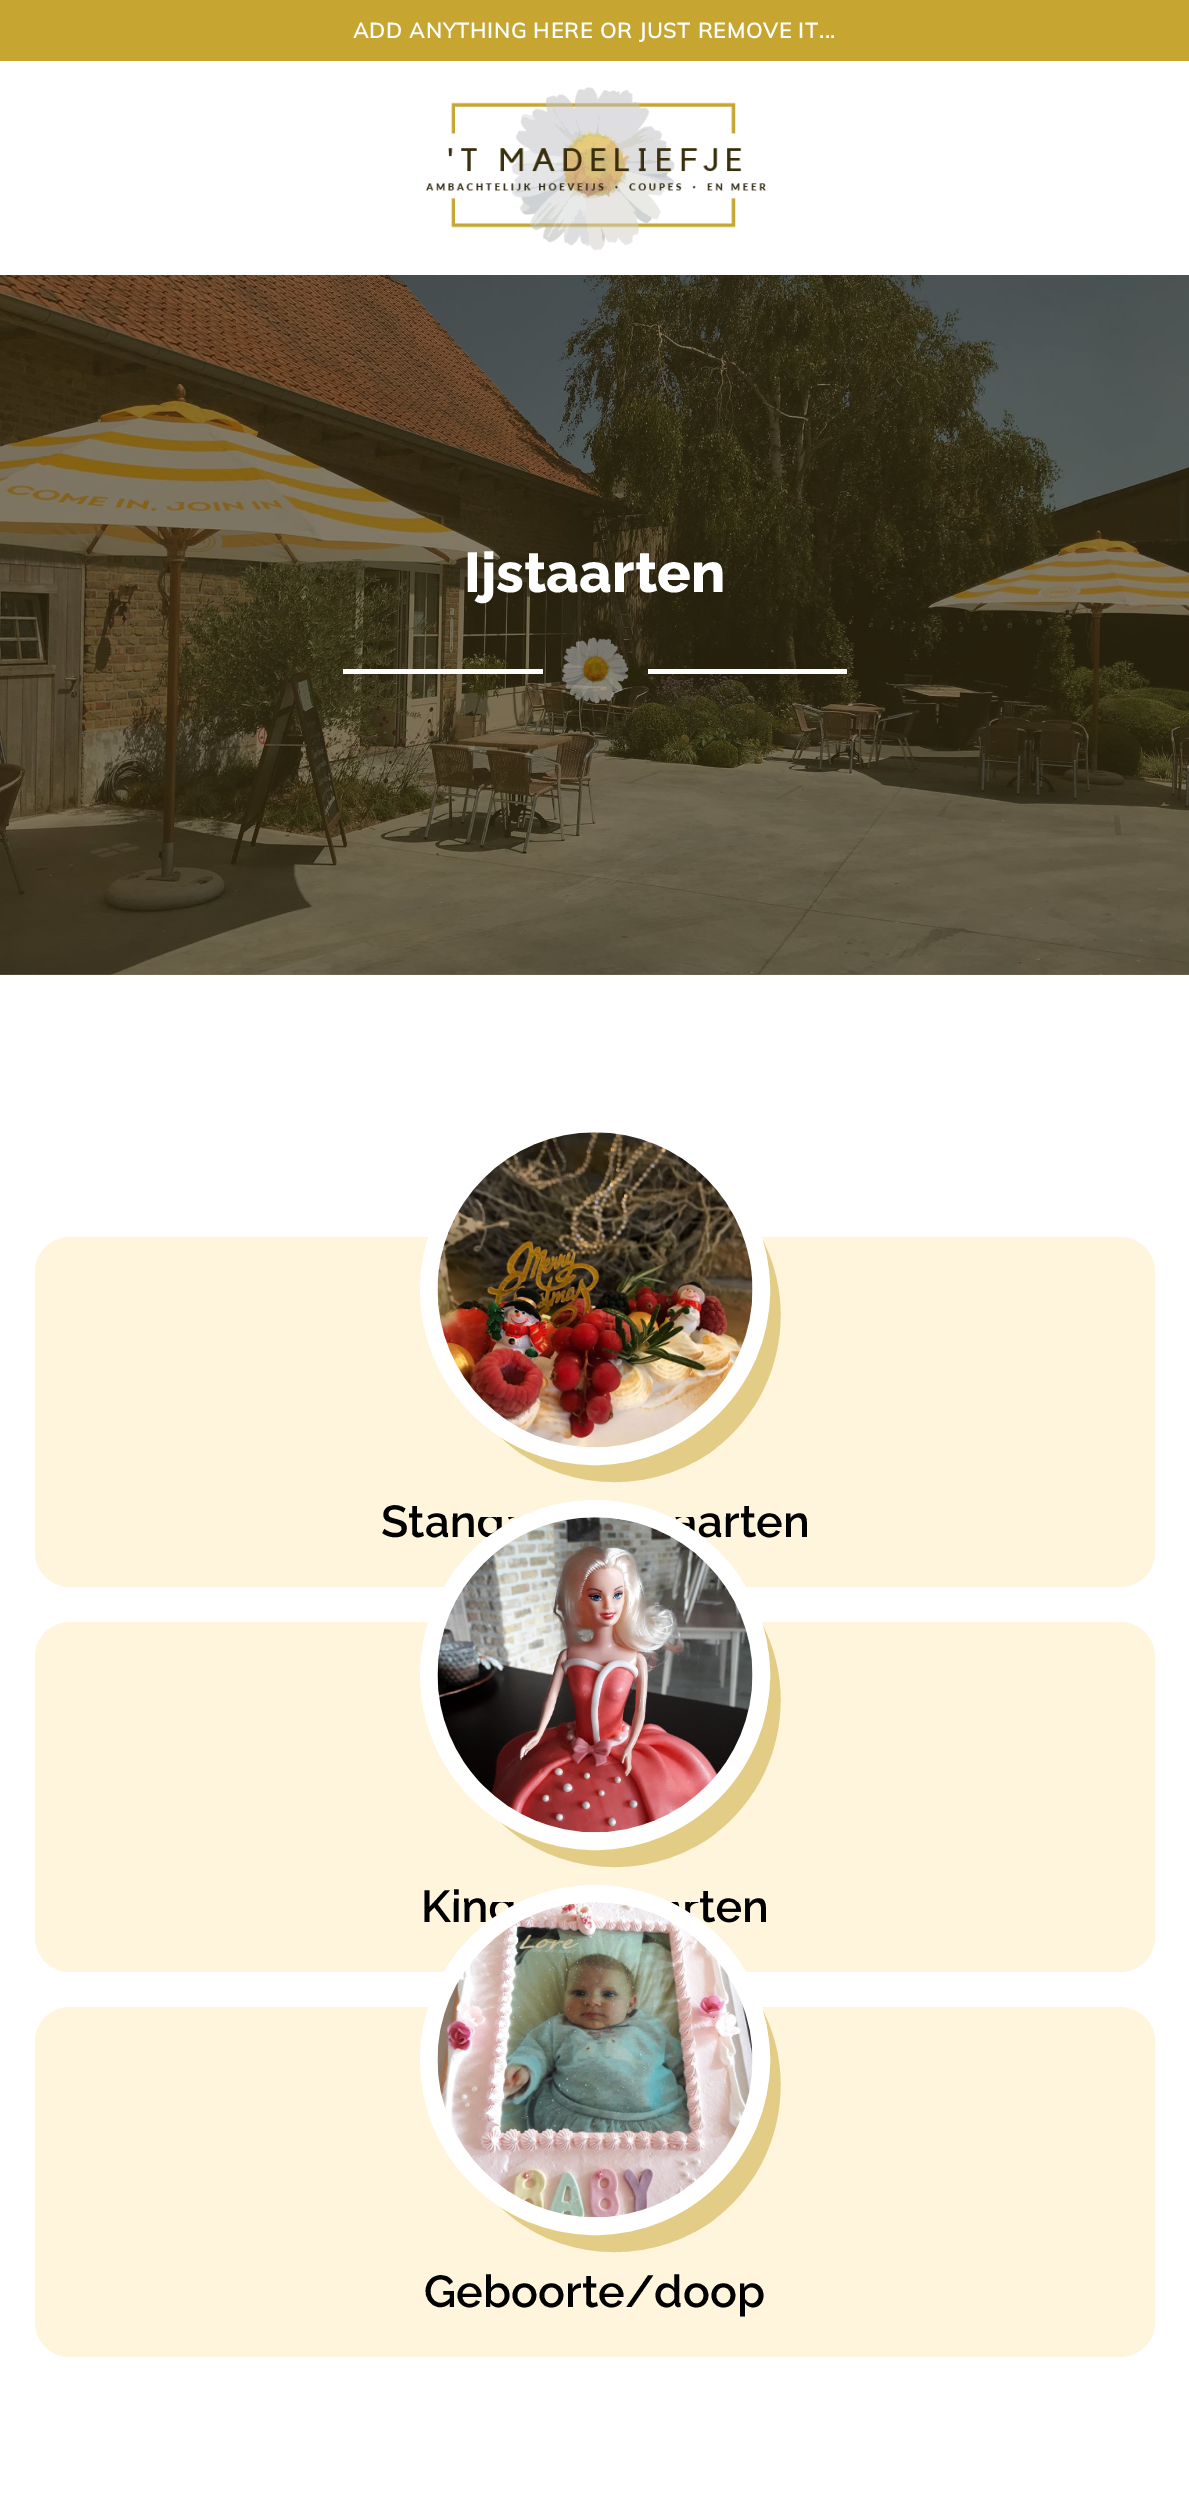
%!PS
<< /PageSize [1189 2493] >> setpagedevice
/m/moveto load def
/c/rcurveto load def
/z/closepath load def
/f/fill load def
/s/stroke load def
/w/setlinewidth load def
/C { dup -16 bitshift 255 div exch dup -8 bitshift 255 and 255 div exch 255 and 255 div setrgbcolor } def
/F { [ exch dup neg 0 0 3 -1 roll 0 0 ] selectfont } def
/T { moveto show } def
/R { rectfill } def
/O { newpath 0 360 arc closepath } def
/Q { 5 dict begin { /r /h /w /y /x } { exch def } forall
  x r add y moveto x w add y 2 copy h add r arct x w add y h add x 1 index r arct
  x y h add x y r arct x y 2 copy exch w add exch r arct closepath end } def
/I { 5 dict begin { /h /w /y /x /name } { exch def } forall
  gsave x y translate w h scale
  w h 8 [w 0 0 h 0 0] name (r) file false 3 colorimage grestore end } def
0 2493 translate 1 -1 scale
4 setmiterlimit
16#FFFFFF C
0 0 1189 2493 R
16#C6A530 C
0 0 1189 61 R
/Mulish-Bold 21 F
16#FFFFFF C
353 38 m 1.05 0 (ADD ANYTHING HERE OR JUST REMOVE IT...) ashow
(1.rgb) 426 87 340 164 I
(2.rgb) 0 275 1189 700 I
/Raleway-ExtraBold 56 F
(Ijstaarten) 464 592 T
343 669 200 5 R
(3.rgb) 562 637 67 67 I
648 669 199 5 R
16#FFF4DC C
35 1237 1120 350 35 Q f
16#E3CD86 C
500 1437 m 56 53 143 60 208 17 c 69 -47 92 -140 55 -213 c 21 72 -7 151 -70 194 c -58 39 -134 39 -193 2 c z f
16#FFFFFF C
18 w
595 1290 166 O s
(4.rgb) 437 1132 316 316 I
/Raleway-SemiBold 44.75 F
16#000000 C
(Stan) 381 1537 T
(arten) 698 1537 T
16#FFF4DC C
35 1622 1120 350 35 Q f
16#E3CD86 C
500 1822 m 56 53 143 60 208 17 c 69 -47 92 -140 55 -213 c 21 72 -7 151 -70 194 c -58 39 -134 39 -193 2 c z f
16#FFFFFF C
595 1675 166 O s
(5.rgb) 437 1517 316 316 I
16#000000 C
(Kin) 421 1922 T
(ten) 699 1922 T
16#FFF4DC C
35 2007 1120 350 35 Q f
16#E3CD86 C
500 2207 m 56 53 143 60 208 17 c 69 -47 92 -140 55 -213 c 21 72 -7 151 -70 194 c -58 39 -134 39 -193 2 c z f
16#FFFFFF C
595 2060 166 O s
(6.rgb) 437 1902 316 316 I
16#000000 C
(Geboorte/doop) 424 2307 T
showpage
